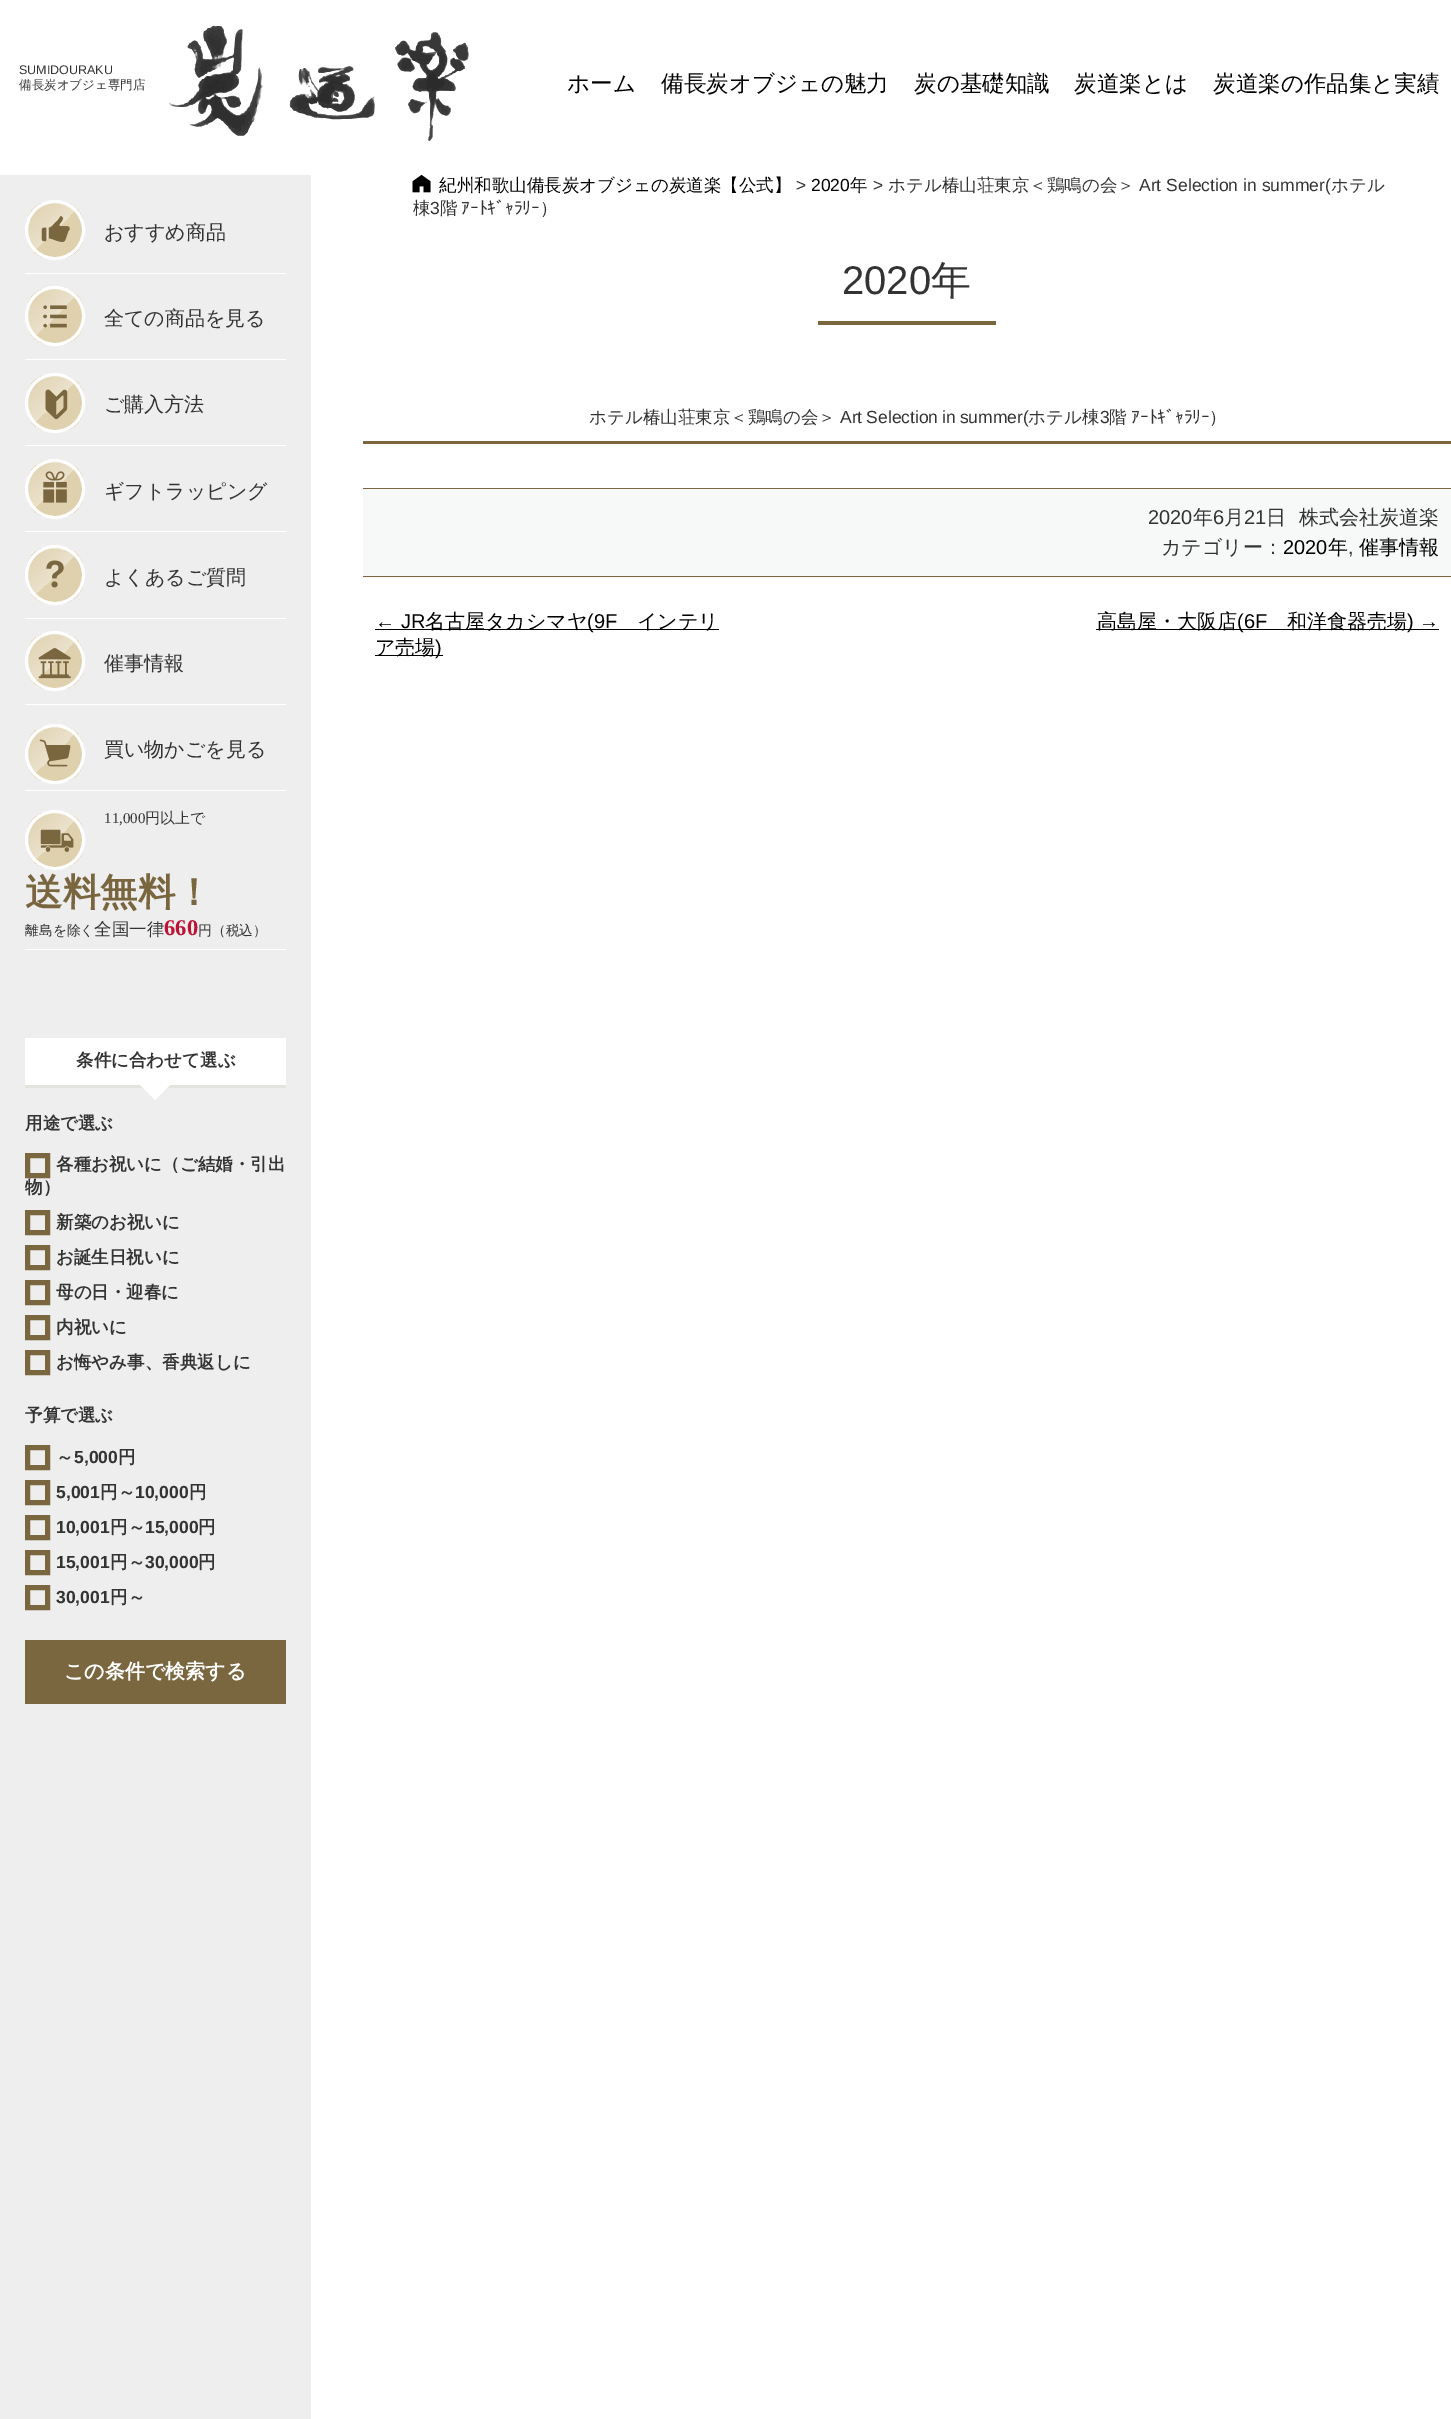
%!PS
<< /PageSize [1451 2419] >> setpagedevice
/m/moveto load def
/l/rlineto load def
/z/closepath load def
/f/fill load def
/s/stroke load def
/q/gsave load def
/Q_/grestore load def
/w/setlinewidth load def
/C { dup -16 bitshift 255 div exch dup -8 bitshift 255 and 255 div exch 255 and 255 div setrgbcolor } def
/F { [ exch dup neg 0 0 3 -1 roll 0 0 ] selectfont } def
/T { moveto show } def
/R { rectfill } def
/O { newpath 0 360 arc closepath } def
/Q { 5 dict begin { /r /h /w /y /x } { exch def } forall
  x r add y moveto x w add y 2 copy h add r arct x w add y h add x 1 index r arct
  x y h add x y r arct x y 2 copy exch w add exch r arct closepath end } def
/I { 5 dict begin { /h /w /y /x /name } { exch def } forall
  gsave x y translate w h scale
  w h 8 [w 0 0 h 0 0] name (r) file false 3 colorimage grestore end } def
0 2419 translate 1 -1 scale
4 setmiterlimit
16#FFFFFF C
0 0 1451 2419 R
/LiberationSans-Regular 12.5 F
16#333333 C
(SUMIDOURAKU) 19 74 T
/WenQuanYiZenHei-Medium 12.5 F
(備長炭オブジェ専門店) 19 89 T
(1.rgb) 169 25 300 116 I
/WenQuanYiZenHei-Medium 22.5 F
16#000000 C
(ホーム) 567 91 T
(備長炭オブジェの魅力) 661 91 T
(炭の基礎知識) 914 91 T
(炭道楽とは) 1074 91 T
(炭道楽の作品集と実績) 1213 91 T
16#EEEEEE C
0 175 311 2244 R
16#FFFFFF C
25 273 261 1 R
q
25 200 60 60 30 Q clip newpath
q 28 203 m 55 0 l 0 55 l -55 0 l z clip newpath
<< /ShadingType 2 /ColorSpace /DeviceRGB /Coords [83 258 28 203] /Extend [true true] /Function << /FunctionType 3 /Domain [0 1] /Functions [<< /FunctionType 2 /Domain [0 1] /C0 [.875 .816 .682] /C1 [.875 .816 .682] /N 1 >> << /FunctionType 2 /Domain [0 1] /C0 [.922 .886 .804] /C1 [.875 .816 .682] /N 1 >>] /Bounds [.5] /Encode [0 1 0 1] >> >> shfill Q_
Q_
3 w
55 230 28.5 O s
(2.rgb) 41 216 29 26 I
/WenQuanYiZenHei-Medium 20 F
16#333333 C
(おすすめ商品) 104 239 T
16#FFFFFF C
25 359 261 1 R
q
25 286 60 60 30 Q clip newpath
q 28 289 m 55 0 l 0 55 l -55 0 l z clip newpath
<< /ShadingType 2 /ColorSpace /DeviceRGB /Coords [83 344 28 289] /Extend [true true] /Function << /FunctionType 3 /Domain [0 1] /Functions [<< /FunctionType 2 /Domain [0 1] /C0 [.875 .816 .682] /C1 [.875 .816 .682] /N 1 >> << /FunctionType 2 /Domain [0 1] /C0 [.922 .886 .804] /C1 [.875 .816 .682] /N 1 >>] /Bounds [.5] /Encode [0 1 0 1] >> >> shfill Q_
Q_
55 316 28.5 O s
(3.rgb) 43 305 24 23 I
16#333333 C
(全ての商品を見る) 104 325 T
16#FFFFFF C
25 445 261 1 R
q
25 373 60 60 30 Q clip newpath
q 28 375 m 55 0 l 0 55 l -55 0 l z clip newpath
<< /ShadingType 2 /ColorSpace /DeviceRGB /Coords [83 430 28 375] /Extend [true true] /Function << /FunctionType 3 /Domain [0 1] /Functions [<< /FunctionType 2 /Domain [0 1] /C0 [.875 .816 .682] /C1 [.875 .816 .682] /N 1 >> << /FunctionType 2 /Domain [0 1] /C0 [.922 .886 .804] /C1 [.875 .816 .682] /N 1 >>] /Bounds [.5] /Encode [0 1 0 1] >> >> shfill Q_
Q_
55 403 28.5 O s
(4.rgb) 45 389 23 31 I
16#333333 C
(ご購入方法) 104 411 T
16#FFFFFF C
25 531 261 1 R
q
25 459 60 60 30 Q clip newpath
q 28 461 m 55 0 l 0 55 l -55 0 l z clip newpath
<< /ShadingType 2 /ColorSpace /DeviceRGB /Coords [83 516 28 461] /Extend [true true] /Function << /FunctionType 3 /Domain [0 1] /Functions [<< /FunctionType 2 /Domain [0 1] /C0 [.875 .816 .682] /C1 [.875 .816 .682] /N 1 >> << /FunctionType 2 /Domain [0 1] /C0 [.922 .886 .804] /C1 [.875 .816 .682] /N 1 >>] /Bounds [.5] /Encode [0 1 0 1] >> >> shfill Q_
Q_
55 489 28.5 O s
(5.rgb) 43 471 24 32 I
16#333333 C
(ギフトラッピング) 104 498 T
16#FFFFFF C
25 618 261 1 R
q
25 545 60 60 30 Q clip newpath
q 28 548 m 55 0 l 0 55 l -55 0 l z clip newpath
<< /ShadingType 2 /ColorSpace /DeviceRGB /Coords [83 603 28 548] /Extend [true true] /Function << /FunctionType 3 /Domain [0 1] /Functions [<< /FunctionType 2 /Domain [0 1] /C0 [.875 .816 .682] /C1 [.875 .816 .682] /N 1 >> << /FunctionType 2 /Domain [0 1] /C0 [.922 .886 .804] /C1 [.875 .816 .682] /N 1 >>] /Bounds [.5] /Encode [0 1 0 1] >> >> shfill Q_
Q_
55 575 28.5 O s
(6.rgb) 46 560 18 28 I
16#333333 C
(よくあるご質問) 104 584 T
16#FFFFFF C
25 704 261 1 R
q
25 631 60 60 30 Q clip newpath
q 28 634 m 55 0 l 0 55 l -55 0 l z clip newpath
<< /ShadingType 2 /ColorSpace /DeviceRGB /Coords [83 689 28 634] /Extend [true true] /Function << /FunctionType 3 /Domain [0 1] /Functions [<< /FunctionType 2 /Domain [0 1] /C0 [.875 .816 .682] /C1 [.875 .816 .682] /N 1 >> << /FunctionType 2 /Domain [0 1] /C0 [.922 .886 .804] /C1 [.875 .816 .682] /N 1 >>] /Bounds [.5] /Encode [0 1 0 1] >> >> shfill Q_
Q_
55 661 28.5 O s
(7.rgb) 38 648 33 31 I
16#333333 C
(催事情報) 104 670 T
16#FFFFFF C
25 790 261 1 R
q
25 724 60 60 30 Q clip newpath
q 28 726 m 55 0 l 0 55 l -55 0 l z clip newpath
<< /ShadingType 2 /ColorSpace /DeviceRGB /Coords [83 781 28 726] /Extend [true true] /Function << /FunctionType 3 /Domain [0 1] /Functions [<< /FunctionType 2 /Domain [0 1] /C0 [.875 .816 .682] /C1 [.875 .816 .682] /N 1 >> << /FunctionType 2 /Domain [0 1] /C0 [.922 .886 .804] /C1 [.875 .816 .682] /N 1 >>] /Bounds [.5] /Encode [0 1 0 1] >> >> shfill Q_
Q_
55 754 28.5 O s
(8.rgb) 39 739 32 28 I
16#333333 C
(買い物かごを見る) 104 756 T
16#FFFFFF C
25 949 261 1 R
q
25 810 60 60 30 Q clip newpath
q 28 813 m 55 0 l 0 55 l -55 0 l z clip newpath
<< /ShadingType 2 /ColorSpace /DeviceRGB /Coords [83 868 28 813] /Extend [true true] /Function << /FunctionType 3 /Domain [0 1] /Functions [<< /FunctionType 2 /Domain [0 1] /C0 [.875 .816 .682] /C1 [.875 .816 .682] /N 1 >> << /FunctionType 2 /Domain [0 1] /C0 [.922 .886 .804] /C1 [.875 .816 .682] /N 1 >>] /Bounds [.5] /Encode [0 1 0 1] >> >> shfill Q_
Q_
55 840 28.5 O s
(9.rgb) 40 829 34 23 I
/LiberationSerif-Regular 15 F
16#333333 C
(11,000) 104 823 T
/WenQuanYiZenHei-Medium 15 F
(円以上で) 145 823 T
/WenQuanYiZenHei-Bold 37.5 F
16#79663F C
(送料無料！) 25 905 T
/WenQuanYiZenHei-Medium 13.75 F
16#333333 C
(離島を除く) 25 935 T
/WenQuanYiZenHei-Medium 17.5 F
(全国一律) 94 935 T
/LiberationSerif-Bold 22.5 F
16#BD1334 C
(660) 164 935 T
/WenQuanYiZenHei-Medium 13.75 F
16#333333 C
(円（税込）) 198 935 T
16#FFFFFF C
25 1038 261 47 R
16#E4E3DD C
25 1085 261 3 R
/WenQuanYiZenHei-Bold 17.5 F
16#333333 C
(条件に合わせて選ぶ) 76 1066 T
16#FFFFFF C
140 1085 m 30 0 l -15 15 l z f
16#333333 C
(用途で選ぶ) 25 1129 T
16#7B673F C
5 w
27.5 1155.5 20 20 rectstroke
16#333333 C
(各種お祝いに（ご結婚・引出) 56 1170 T
(物）) 25 1193 T
16#7B673F C
27.5 1212.5 20 20 rectstroke
16#333333 C
(新築のお祝いに) 56 1228 T
16#7B673F C
27.5 1247.5 20 20 rectstroke
16#333333 C
(お誕生日祝いに) 56 1263 T
16#7B673F C
27.5 1282.5 20 20 rectstroke
16#333333 C
(母の日・迎春に) 56 1298 T
16#7B673F C
27.5 1317.5 20 20 rectstroke
16#333333 C
(内祝いに) 56 1333 T
16#7B673F C
27.5 1352.5 20 20 rectstroke
16#333333 C
(お悔やみ事、香典返しに) 56 1368 T
(予算で選ぶ) 25 1421 T
16#7B673F C
27.5 1447.5 20 20 rectstroke
16#333333 C
(～) 56 1463 T
/LiberationSans-Bold 17.5 F
(5,000) 74 1463 T
/WenQuanYiZenHei-Bold 17.5 F
(円) 118 1463 T
16#7B673F C
27.5 1482.5 20 20 rectstroke
/LiberationSans-Bold 17.5 F
16#333333 C
(5,001) 56 1498 T
/WenQuanYiZenHei-Bold 17.5 F
(円～) 100 1498 T
/LiberationSans-Bold 17.5 F
(10,000) 135 1498 T
/WenQuanYiZenHei-Bold 17.5 F
(円) 189 1498 T
16#7B673F C
27.5 1517.5 20 20 rectstroke
/LiberationSans-Bold 17.5 F
16#333333 C
(10,001) 56 1533 T
/WenQuanYiZenHei-Bold 17.5 F
(円～) 110 1533 T
/LiberationSans-Bold 17.5 F
(15,000) 145 1533 T
/WenQuanYiZenHei-Bold 17.5 F
(円) 198 1533 T
16#7B673F C
27.5 1552.5 20 20 rectstroke
/LiberationSans-Bold 17.5 F
16#333333 C
(15,001) 56 1568 T
/WenQuanYiZenHei-Bold 17.5 F
(円～) 110 1568 T
/LiberationSans-Bold 17.5 F
(30,000) 145 1568 T
/WenQuanYiZenHei-Bold 17.5 F
(円) 198 1568 T
16#7B673F C
27.5 1587.5 20 20 rectstroke
/LiberationSans-Bold 17.5 F
16#333333 C
(30,001) 56 1603 T
/WenQuanYiZenHei-Bold 17.5 F
(円～) 110 1603 T
16#7B673F C
25 1640 261 64 R
/WenQuanYiZenHei-Bold 20 F
16#FFFFFF C
(この条件で検索する) 64 1678 T
(10.rgb) 412 174 19 19 I
/WenQuanYiZenHei-Medium 17.5 F
16#000000 C
(紀州和歌山備長炭オブジェの炭道楽【公式】) 439 191 T
/LiberationSans-Regular 17.5 F
16#333333 C
(>) 796 191 T
16#000000 C
(2020) 811 191 T
/WenQuanYiZenHei-Medium 17.5 F
(年) 850 191 T
/LiberationSans-Regular 17.5 F
16#333333 C
(>) 873 191 T
/WenQuanYiZenHei-Medium 17.5 F
(ホテル椿山荘東京＜鶏鳴の会＞) 888 191 T
/LiberationSans-Regular 17.5 F
(Art Selection in summer\() 1139 191 T
/WenQuanYiZenHei-Medium 17.5 F
(ホテル) 1331 191 T
(棟) 413 214 T
/LiberationSans-Regular 17.5 F
(3) 430 214 T
/WenQuanYiZenHei-Medium 17.5 F
(階) 440 214 T
/IPAPGothic-Regular 17.5 F
(ｱｰﾄｷﾞｬﾗﾘｰ) 461 214 T
/WenQuanYiZenHei-Medium 17.5 F
(）) 540 214 T
16#7B673F C
818 321 178 4 R
/LiberationSans-Regular 40 F
16#333333 C
(2020) 842 294 T
/WenQuanYiZenHei-Medium 40 F
(年) 931 294 T
16#7A673F C
363 441 1088 3 R
/WenQuanYiZenHei-Medium 17.5 F
16#333333 C
(ホテル椿山荘東京＜鶏鳴の会＞) 589 423 T
/LiberationSans-Regular 17.5 F
840 423 m -1 0 32 (Art Selection in summer\() widthshow
/WenQuanYiZenHei-Medium 17.5 F
(ホテル棟) 1028 423 T
/LiberationSans-Regular 17.5 F
(3) 1100 423 T
/WenQuanYiZenHei-Medium 17.5 F
(階) 1109 423 T
/IPAPGothic-Regular 17.5 F
(ｱｰﾄｷﾞｬﾗﾘｰ) 1131 423 T
/WenQuanYiZenHei-Medium 17.5 F
(）) 1209 423 T
16#F7F8F8 C
363 489 1088 89 R
16#7B673F C
363 488 1088 1 R
363 576 1088 1 R
/LiberationSans-Regular 20 F
16#333333 C
(2020) 1148 524 T
/WenQuanYiZenHei-Medium 20 F
(年) 1193 524 T
/LiberationSans-Regular 20 F
(6) 1213 524 T
/WenQuanYiZenHei-Medium 20 F
(月) 1224 524 T
/LiberationSans-Regular 20 F
(21) 1244 524 T
/WenQuanYiZenHei-Medium 20 F
(日) 1266 524 T
(株式会社炭道楽) 1299 524 T
(カテゴリー：) 1161 554 T
/LiberationSans-Regular 20 F
16#000000 C
(2020) 1283 554 T
/WenQuanYiZenHei-Medium 20 F
(年) 1328 554 T
/LiberationSans-Regular 20 F
16#333333 C
(,) 1348 554 T
/WenQuanYiZenHei-Medium 20 F
16#000000 C
(催事情報) 1359 554 T
/LiberationSans-Regular 20 F
(← JR) 375 628 T
375 629 344 1 R
/WenQuanYiZenHei-Medium 20 F
(名古屋タカシマヤ) 425 628 T
/LiberationSans-Regular 20 F
(\(9F) 587 628 T
/WenQuanYiZenHei-Medium 20 F
(インテリ) 637 628 T
375 655 68 1 R
(ア売場) 375 654 T
/LiberationSans-Regular 20 F
(\)) 435 654 T
1096 629 343 1 R
/WenQuanYiZenHei-Medium 20 F
(高島屋・大阪店) 1097 628 T
/LiberationSans-Regular 20 F
(\(6F) 1237 628 T
/WenQuanYiZenHei-Medium 20 F
(和洋食器売場) 1287 628 T
/LiberationSans-Regular 20 F
(\) →) 1407 628 T
showpage
